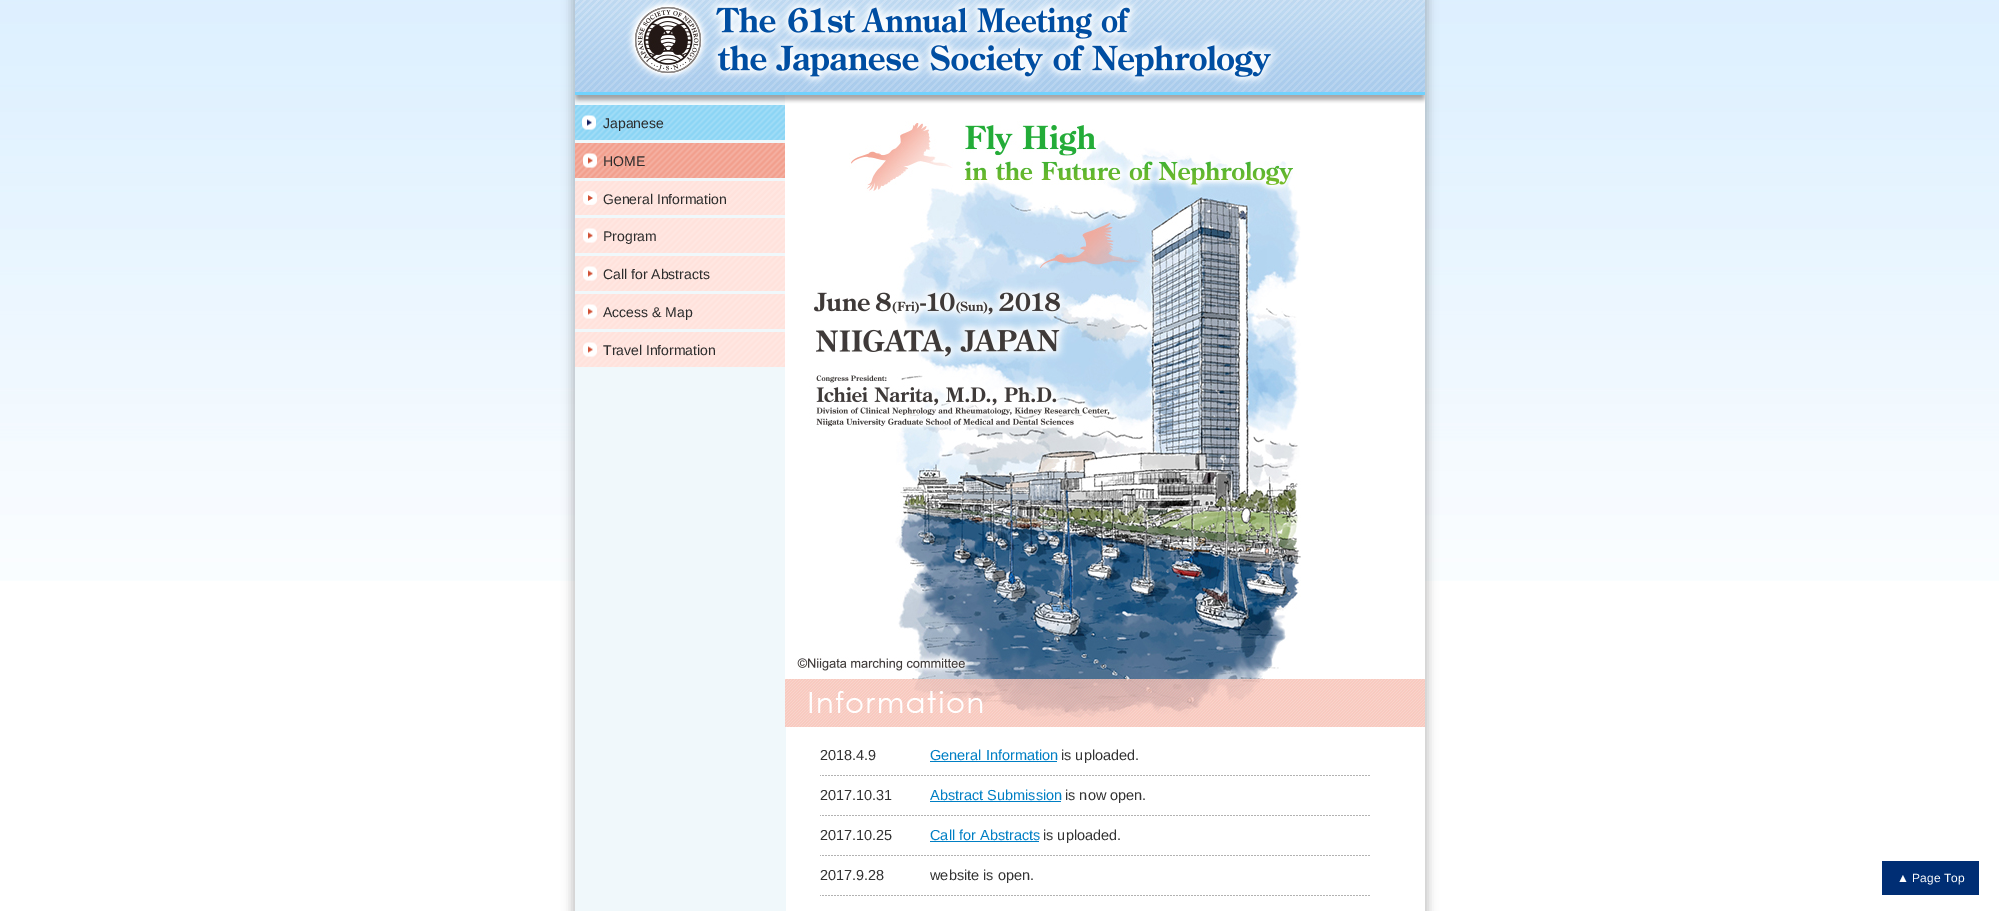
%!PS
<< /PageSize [1999 911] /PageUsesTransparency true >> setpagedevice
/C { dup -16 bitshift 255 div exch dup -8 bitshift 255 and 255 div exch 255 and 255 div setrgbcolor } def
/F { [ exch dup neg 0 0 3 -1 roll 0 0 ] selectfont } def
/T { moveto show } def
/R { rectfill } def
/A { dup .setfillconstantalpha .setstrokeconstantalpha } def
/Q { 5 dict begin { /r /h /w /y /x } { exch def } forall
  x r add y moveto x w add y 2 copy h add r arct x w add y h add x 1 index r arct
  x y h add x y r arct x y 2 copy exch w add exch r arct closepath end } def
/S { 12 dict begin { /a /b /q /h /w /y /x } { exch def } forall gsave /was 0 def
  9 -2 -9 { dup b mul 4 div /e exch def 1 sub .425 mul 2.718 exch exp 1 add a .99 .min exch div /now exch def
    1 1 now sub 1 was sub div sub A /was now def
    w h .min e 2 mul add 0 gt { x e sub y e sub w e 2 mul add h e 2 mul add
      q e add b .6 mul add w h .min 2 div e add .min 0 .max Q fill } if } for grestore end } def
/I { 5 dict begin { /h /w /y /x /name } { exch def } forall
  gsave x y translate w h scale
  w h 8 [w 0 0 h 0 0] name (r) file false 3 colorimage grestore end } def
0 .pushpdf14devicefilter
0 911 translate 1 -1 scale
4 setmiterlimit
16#FFFFFF C
0 0 1999 911 R
(1.rgb) 0 0 1999 581 I
16#000000 C
572 -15 856 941 0 5 .23 S
(2.rgb) 575 0 850 105 I
16#FFFFFF C
786 105 639 806 R
16#F0F8FB C
575 140 211 771 R
(3.rgb) 575 105 210 35 I
/LiberationSans-Regular 14 F
16#2B2B2B C
(Japanese) 603 128 T
(4.rgb) 575 143 210 35 I
(HOME) 603 166 T
(5.rgb) 575 181 210 34 I
(General Information) 603 204 T
(6.rgb) 575 218 210 35 I
(Program) 603 241 T
(6.rgb) 575 256 210 35 I
(Call for Abstracts) 603 279 T
(6.rgb) 575 294 210 35 I
(Access & Map) 603 317 T
(6.rgb) 575 332 210 35 I
(Travel Information) 603 355 T
(7.rgb) 785 105 516 574 I
(8.rgb) 785 679 640 48 I
/LiberationSans-Regular 14.5 F
16#333333 C
(2018.4.9) 820 760 T
(9.rgb) 820 775 550 1 I
16#007FC4 C
(General Information) 930 760 T
930 761 127 1 R
16#333333 C
(is uploaded.) 1061 760 T
(2017.10.31) 820 800 T
(9.rgb) 820 815 550 1 I
16#007FC4 C
(Abstract Submission) 930 800 T
930 801 131 1 R
16#333333 C
(is now open.) 1065 800 T
(2017.10.25) 820 840 T
(9.rgb) 820 855 550 1 I
16#007FC4 C
(Call for Abstracts) 930 840 T
930 841 109 1 R
16#333333 C
(is uploaded.) 1043 840 T
(2017.9.28) 820 880 T
(9.rgb) 820 895 550 1 I
(website is open.) 930 880 T
16#002E74 C
1882 861 97 34 R
/LiberationSans-Regular 12 F
16#FFFFFF C
(▲ Page Top) 1897 882 T
.poppdf14devicefilter showpage
